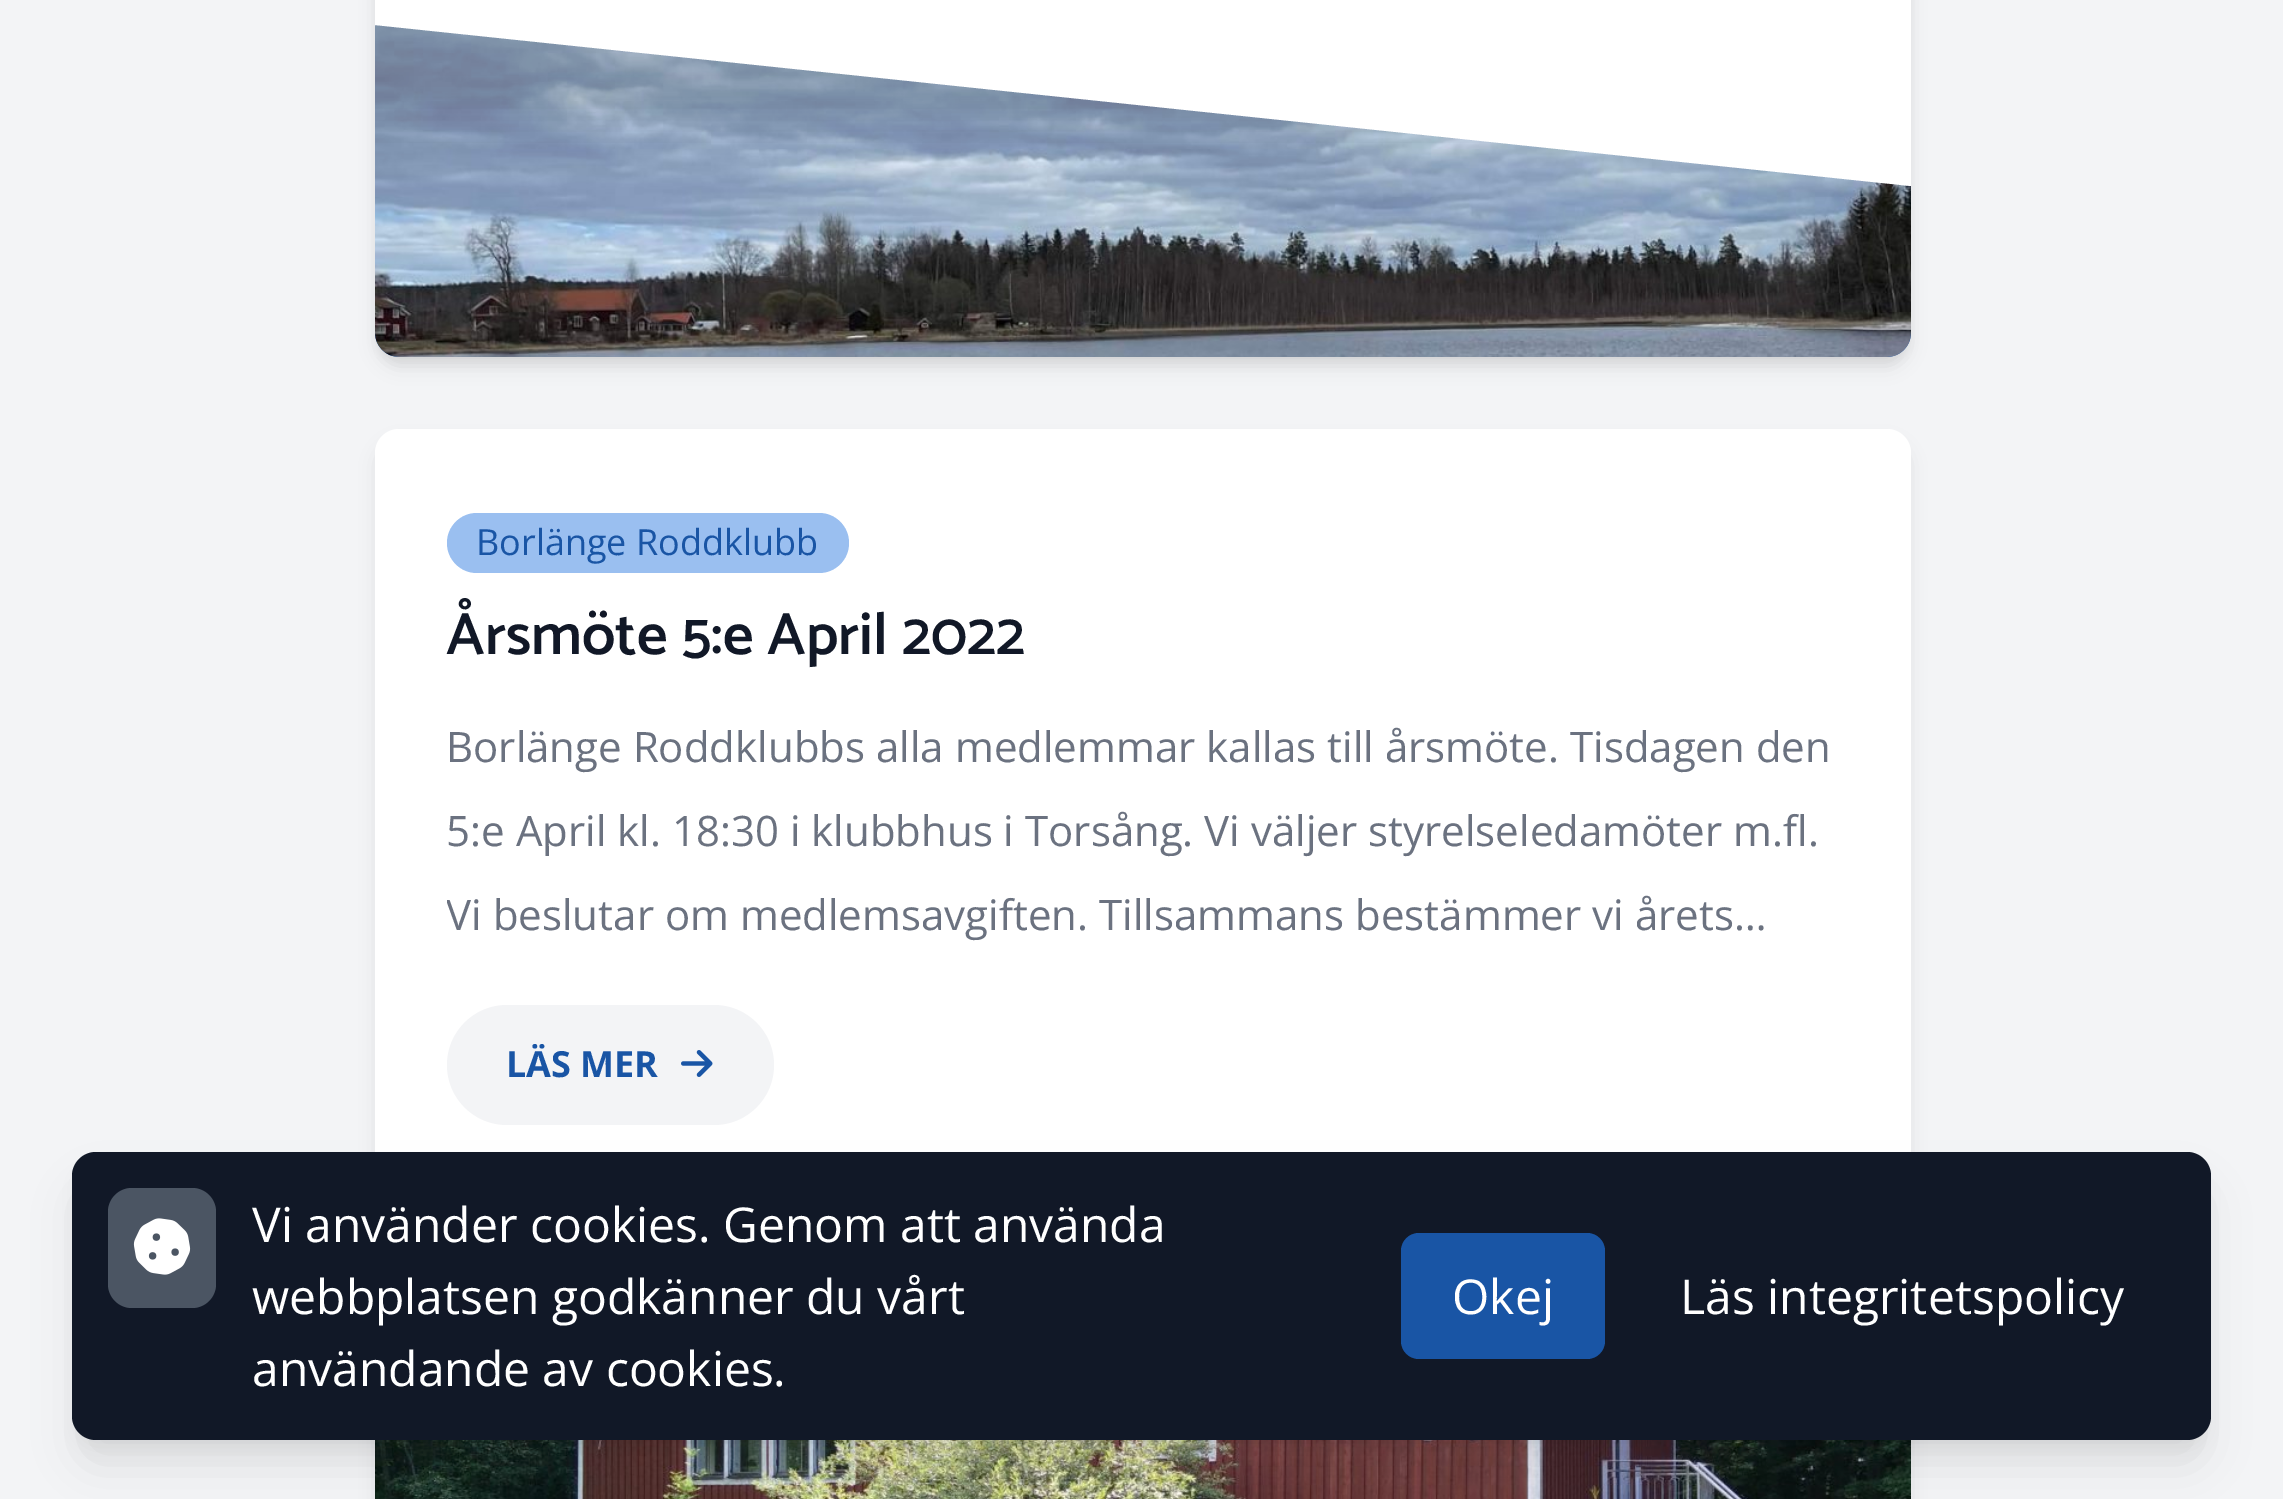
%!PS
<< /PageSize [2283 1499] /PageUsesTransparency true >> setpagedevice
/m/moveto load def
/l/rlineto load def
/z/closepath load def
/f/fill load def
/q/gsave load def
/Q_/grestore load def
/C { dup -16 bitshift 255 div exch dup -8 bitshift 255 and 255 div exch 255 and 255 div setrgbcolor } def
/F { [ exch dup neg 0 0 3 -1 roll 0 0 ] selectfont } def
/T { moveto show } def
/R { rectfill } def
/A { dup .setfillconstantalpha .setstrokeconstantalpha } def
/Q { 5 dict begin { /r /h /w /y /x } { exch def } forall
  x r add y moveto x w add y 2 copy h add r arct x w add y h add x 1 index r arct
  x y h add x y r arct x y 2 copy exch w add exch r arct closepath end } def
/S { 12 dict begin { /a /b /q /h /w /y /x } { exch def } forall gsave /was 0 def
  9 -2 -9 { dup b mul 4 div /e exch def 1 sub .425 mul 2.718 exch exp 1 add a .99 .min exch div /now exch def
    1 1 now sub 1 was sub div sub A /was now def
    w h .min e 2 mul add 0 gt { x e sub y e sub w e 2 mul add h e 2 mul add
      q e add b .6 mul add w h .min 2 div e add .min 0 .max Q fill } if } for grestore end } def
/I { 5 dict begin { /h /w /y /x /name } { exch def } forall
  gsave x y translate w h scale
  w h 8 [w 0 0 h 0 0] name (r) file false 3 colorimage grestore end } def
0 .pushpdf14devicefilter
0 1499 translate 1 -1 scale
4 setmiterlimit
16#F3F4F6 C
0 0 2283 1499 R
16#000000 C
378 -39 1530 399 21 6 .06 S
378 -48 1530 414 21 9 .1 S
16#FFFFFF C
375 -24 1536 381 24 Q f
(1.rgb) 375 25 1536 332 I
q
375 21 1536 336 rectclip
16#000000 C
225 -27 1833 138 0 9 .05 S
228 -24 1827 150 0 22.5 .1 S
Q_
q
375 21 1536 336 rectclip
375 25 m 0 -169 l 1536 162 l 0 168 l z f
Q_
16#000000 C
378 444 1530 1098 21 9 .1 S
16#FFFFFF C
375 429 1536 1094 24 Q f
16#9ABFF0 C
447 513 402 60 30 Q f
/OpenSans-Regular 36 F
16#1955A5 C
(Borlänge Roddklubb) 476 555 T
/Catamaran-SemiBold 60 F
16#111827 C
(Årsmöte 5:e April 2022) 446 654 T
/OpenSans-Regular 42 F
16#6B7280 C
(Borlänge Roddklubbs alla medlemmar kallas till årsmöte. Tisdagen den) 446 762 T
(5:e April kl. 18:30 i klubbhus i Torsång. Vi väljer styrelseledamöter m.fl.) 446 846 T
q
447 705 1392 252 rectclip
(Vi beslutar om medlemsavgiften. Tillsammans bestämmer vi årets…) 446 930 T
Q_
16#F3F4F6 C
447 1005 327 120 60 Q f
/OpenSans-Bold 36 F
16#1955A5 C
(LÄS MER) 506 1077 T
(2.rgb) 681 1050 32 27 I
(3.rgb) 375 1440 1536 59 I
16#000000 C
78 1170 2127 276 18 9 .05 S
81 1191 2121 270 15 22.5 .1 S
16#111827 C
72 1152 2139 288 24 Q f
16#4B5563 C
108 1188 108 120 24 Q f
(4.rgb) 133 1218 58 57 I
/OpenSans-Regular 48 F
16#FFFFFF C
(Vi använder cookies. Genom att använda) 252 1242 T
(webbplatsen godkänner du vårt) 252 1314 T
(användande av cookies.) 252 1386 T
16#1955A5 C
1401 1233 204 126 18 Q f
16#FFFFFF C
(Okej) 1452 1314 T
(Läs integritetspolicy) 1680 1314 T
.poppdf14devicefilter showpage
